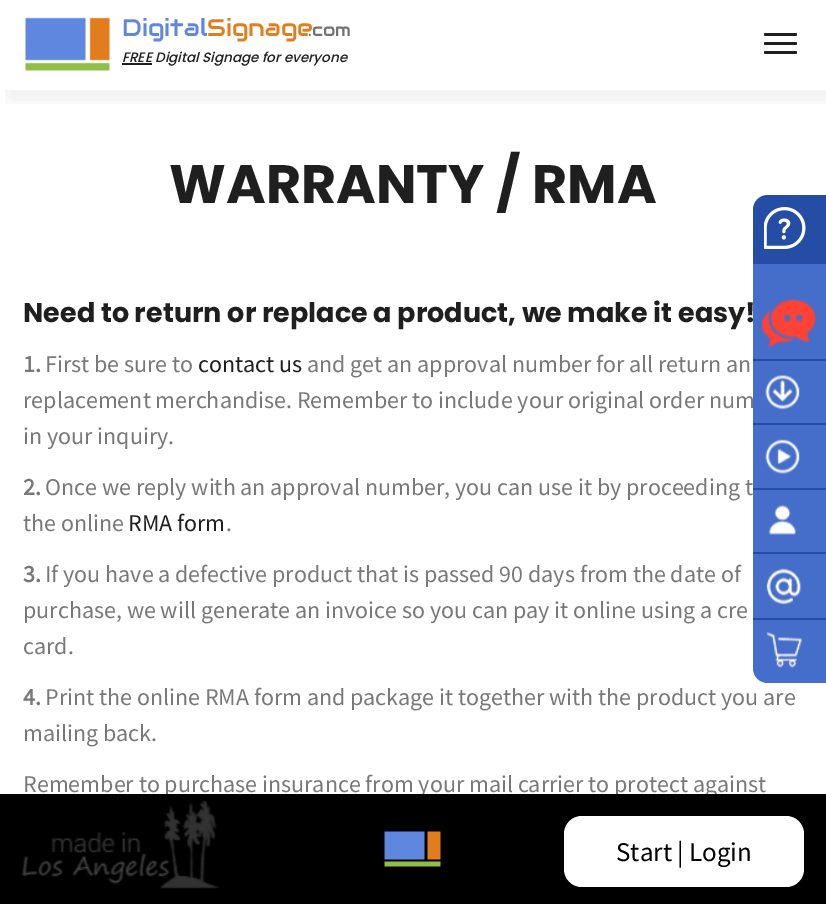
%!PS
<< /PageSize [826 904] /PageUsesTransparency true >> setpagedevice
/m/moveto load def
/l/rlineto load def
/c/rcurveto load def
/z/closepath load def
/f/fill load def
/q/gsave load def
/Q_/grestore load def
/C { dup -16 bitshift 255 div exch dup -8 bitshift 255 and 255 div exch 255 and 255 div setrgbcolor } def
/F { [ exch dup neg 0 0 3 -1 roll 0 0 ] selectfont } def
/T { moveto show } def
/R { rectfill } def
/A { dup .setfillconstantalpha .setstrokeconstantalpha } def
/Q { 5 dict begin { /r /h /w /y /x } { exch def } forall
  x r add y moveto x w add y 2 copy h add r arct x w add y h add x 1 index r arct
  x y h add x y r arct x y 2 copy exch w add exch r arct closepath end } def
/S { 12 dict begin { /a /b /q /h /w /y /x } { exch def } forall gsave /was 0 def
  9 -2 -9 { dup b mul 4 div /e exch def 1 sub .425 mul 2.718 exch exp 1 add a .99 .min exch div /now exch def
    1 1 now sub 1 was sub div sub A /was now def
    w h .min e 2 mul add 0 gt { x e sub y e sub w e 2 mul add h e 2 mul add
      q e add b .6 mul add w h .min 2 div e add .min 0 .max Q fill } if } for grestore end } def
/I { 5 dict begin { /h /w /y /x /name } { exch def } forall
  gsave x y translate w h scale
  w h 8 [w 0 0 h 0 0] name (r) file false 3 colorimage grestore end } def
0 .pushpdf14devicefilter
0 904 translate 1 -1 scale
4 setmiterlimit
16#FFFFFF C
0 0 826 904 R
q
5 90 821 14 rectclip
16#1F1F1F C
8 8 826 90 0 11 .07 S
Q_
(1.rgb) 25 17 85 54 I
/Audiowide-Regular 24 F
16#5F87E0 C
(Digital) 122 36 T
16#E17D1C C
(Signage) 207 36 T
/Audiowide-Regular 18 F
16#727272 C
(.com) 308 36 T
16#1F1F1F C
122 63 30 2 R
/Poppins-MediumItalic 13.5 F
(FREE Digital Signage for everyone) 122 62 T
764 42 33 3 1.5 Q f
764 33 33 3 1.5 Q f
764 51 33 3 1.5 Q f
/Poppins-Bold 54 F
(WARRANTY / RMA) 169 203 T
/Poppins-Bold 27 F
(Need to return or replace a product, we make it easy!) 23 322 T
/SourceSansPro-Bold 24 F
16#787878 C
(1.) 23 372 T
/SourceSansPro-Regular 24 F
(First be sure to) 45 372 T
16#1F1F1F C
(contact us) 198 372 T
16#787878 C
(and get an approval number for all return an) 307 372 T
(replacement merchandise. Remember to include your original order num) 23 408 T
(in your inquiry.) 23 444 T
/SourceSansPro-Bold 24 F
(2.) 23 495 T
/SourceSansPro-Regular 24 F
(Once we reply with an approval number, you can use it by proceeding t) 45 495 T
(the online) 23 531 T
16#1F1F1F C
(RMA form) 128 531 T
16#787878 C
(.) 226 531 T
/SourceSansPro-Bold 24 F
(3.) 23 582 T
/SourceSansPro-Regular 24 F
(If you have a defective product that is passed 90 days from the date of) 45 582 T
(purchase, we will generate an invoice so you can pay it online using a cre) 23 618 T
(card.) 23 654 T
/SourceSansPro-Bold 24 F
(4.) 23 705 T
/SourceSansPro-Regular 24 F
(Print the online RMA form and package it together with the product you are) 45 705 T
(mailing back.) 23 741 T
(Remember to purchase insurance from your mail carrier to protect against) 23 792 T
16#000000 C
0 794 826 110 R
(2.rgb) 22 801 197 88 I
(3.rgb) 384 831 57 36 I
16#FFFFFF C
564 816 240 71 18 Q f
/SourceSansPro-Regular 27 F
16#000000 C
(Start | Login) 616 861 T
16#264DA5 C
768 195 m 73 0 l 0 69 l -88 0 l 0 -54 l 0 -8.5 6.5 -15 15 -15 c z f
(4.rgb) 764 207 42 42 I
16#456ECA C
753 264 m 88 0 l 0 419 l -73 0 l -8.5 0 -15 -6.5 -15 -15 c z f
16#264DA5 C
753 359 73 2 R
(5.rgb) 762 299 54 48 I
753 423 73 2 R
(6.rgb) 762 375 38 36 I
753 488 73 2 R
(7.rgb) 762 439 38 37 I
753 552 73 2 R
(8.rgb) 769 505 27 30 I
753 618 73 2 R
(9.rgb) 766 568 35 37 I
(10.rgb) 766 632 36 36 I
.poppdf14devicefilter showpage
